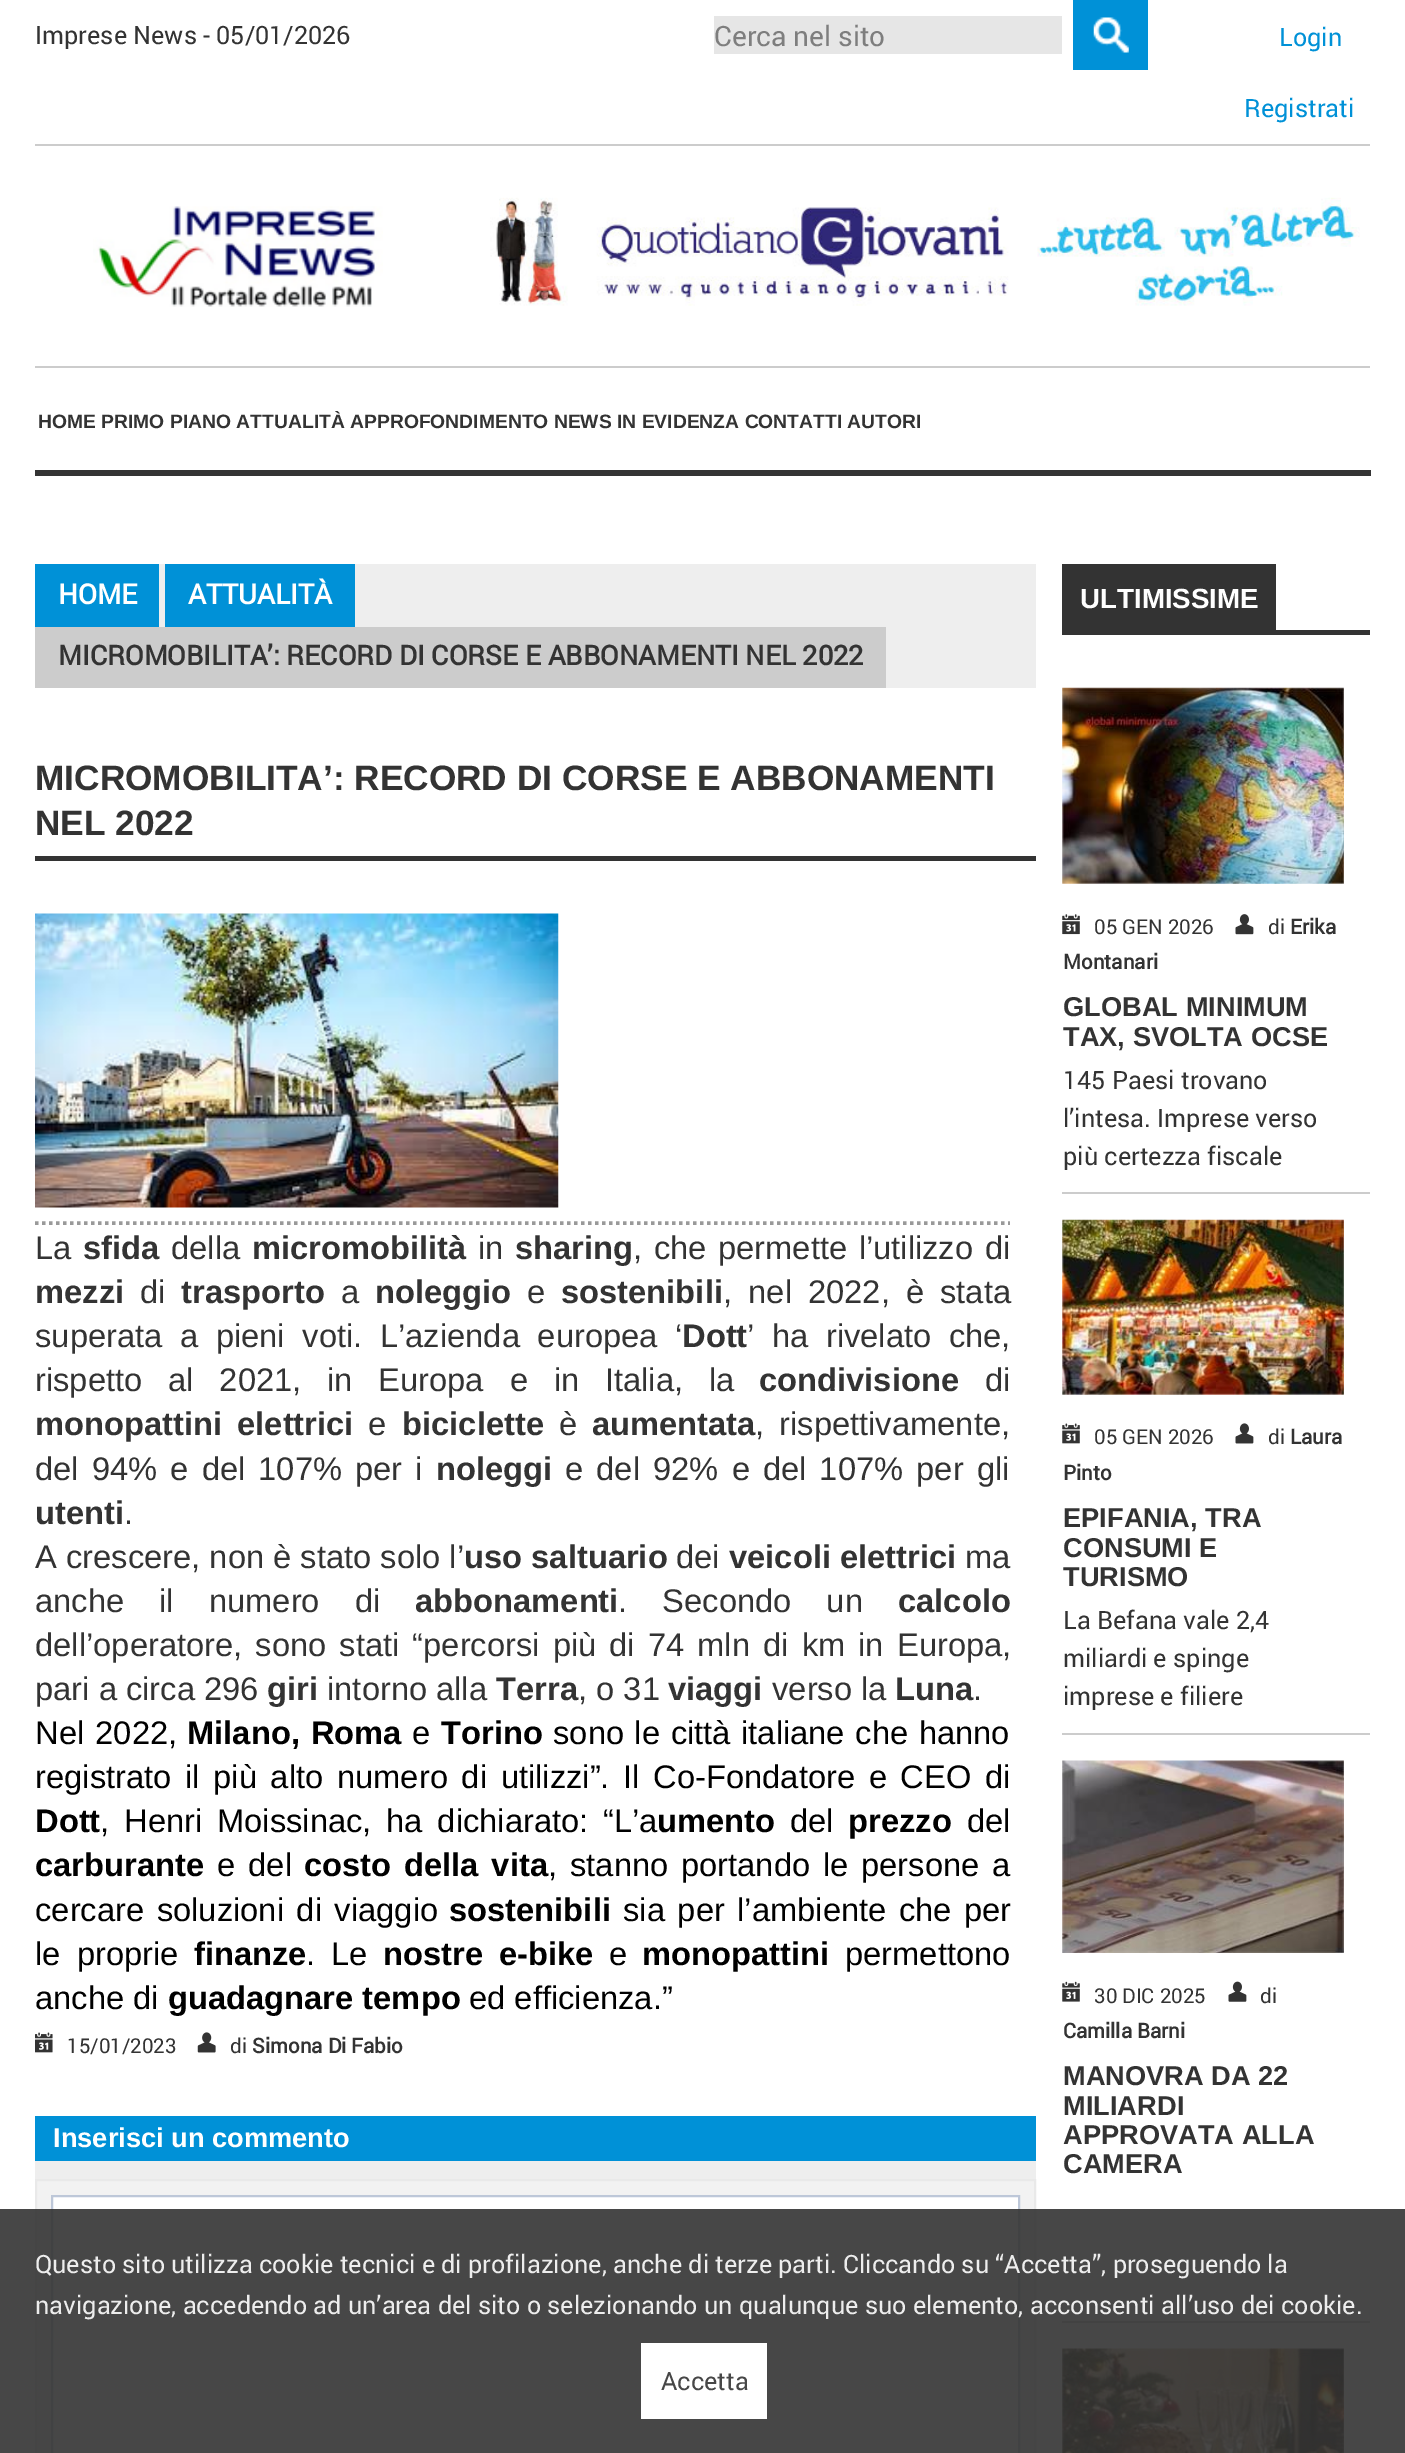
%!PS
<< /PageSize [1405 2453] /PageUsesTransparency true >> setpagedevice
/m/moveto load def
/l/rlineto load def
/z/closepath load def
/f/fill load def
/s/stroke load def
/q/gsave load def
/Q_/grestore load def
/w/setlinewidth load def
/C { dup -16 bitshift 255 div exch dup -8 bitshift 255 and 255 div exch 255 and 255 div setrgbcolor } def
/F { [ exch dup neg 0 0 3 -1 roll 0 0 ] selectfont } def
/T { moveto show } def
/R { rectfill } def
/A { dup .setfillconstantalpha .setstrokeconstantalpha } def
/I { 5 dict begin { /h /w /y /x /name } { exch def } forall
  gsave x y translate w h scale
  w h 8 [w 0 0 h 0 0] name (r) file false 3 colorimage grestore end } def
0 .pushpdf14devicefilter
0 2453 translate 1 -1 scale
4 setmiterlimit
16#FFFFFF C
0 0 1405 2453 R
16#CCCCCC C
35 144 1335 2 R
/Roboto-Regular 25.2 F
16#333333 C
(Imprese News - 05/01/2026) 35 44 T
16#E6E6E6 C
714 16 348 38 R
/Roboto-Regular 28 F
16#7E7E7E C
(Cerca nel sito) 714 46 T
16#0091D7 C
1073 0 75 70 R
(1.rgb) 1093 17 36 36 I
/Roboto-Regular 25.2 F
(Login) 1279 46 T
(Registrati) 1244 117 T
16#CCCCCC C
35 366 1335 2 R
(2.rgb) 93 206 290 101 I
(3.rgb) 490 197 870 109 I
16#343434 C
35 470 1336 6 R
/LiberationSans-Bold 19.3 F
16#333333 C
(HOME PRIMO PIANO ATTUALITÀ APPROFONDIMENTO NEWS IN EVIDENZA CONTATTI AUTORI) 38 428 T
16#EEEEEE C
159 564 877 124 R
16#0091D7 C
35 564 124 63 R
/Roboto-Bold 27.75 F
16#FFFFFF C
(HOME) 58 604 T
16#0091D7 C
165 564 190 63 R
16#FFFFFF C
(ATTUALITÀ) 188 604 T
16#CCCCCC C
35 627 851 61 R
/Roboto-Bold 27.25 F
16#333333 C
(MICROMOBILITA’: RECORD DI CORSE E ABBONAMENTI NEL 2022) 58 665 T
35 856 1001 5 R
/LiberationSans-Bold 35.25 F
(MICROMOBILITA’: RECORD DI CORSE E ABBONAMENTI) 35 790 T
(NEL 2022) 35 835 T
16#999999 C
3.5 w
[3.5 3.5] 0 setdash
35 1223 m 975 0 l s
(4.rgb) 35 913 524 295 I
/LiberationSans-Regular 32.7 F
16#333333 C
(La) 35 1259 T
/LiberationSans-Bold 32.7 F
(sfida) 83 1259 T
/LiberationSans-Regular 32.7 F
(della) 171 1259 T
/LiberationSans-Bold 32.7 F
(micromobilità) 252 1259 T
/LiberationSans-Regular 32.7 F
(in) 478 1259 T
/LiberationSans-Bold 32.7 F
(sharing) 515 1259 T
/LiberationSans-Regular 32.7 F
633 1259 m 2.5 0 32 (, che permette l’utilizzo di) widthshow
/LiberationSans-Bold 32.7 F
(mezzi) 35 1303 T
/LiberationSans-Regular 32.7 F
(di) 140 1303 T
/LiberationSans-Bold 32.7 F
(trasporto) 181 1303 T
/LiberationSans-Regular 32.7 F
(a) 341 1303 T
/LiberationSans-Bold 32.7 F
(noleggio) 375 1303 T
/LiberationSans-Regular 32.7 F
(e) 527 1303 T
/LiberationSans-Bold 32.7 F
(sostenibili) 561 1303 T
/LiberationSans-Regular 32.7 F
723 1303 m 7 0 32 (, nel 2022, è stata) widthshow
35 1347 m 8.5 0 32 (superata a pieni voti. L’azienda europea ‘) widthshow
/LiberationSans-Bold 32.7 F
(Dott) 682 1347 T
/LiberationSans-Regular 32.7 F
747 1347 m 8.5 0 32 (’ ha rivelato che,) widthshow
35 1391 m 16.75 0 32 (rispetto al 2021, in Europa e in Italia, la) widthshow
/LiberationSans-Bold 32.7 F
(condivisione) 759 1391 T
/LiberationSans-Regular 32.7 F
(di) 985 1391 T
/LiberationSans-Bold 32.7 F
35 1435 m 6 0 32 (monopattini elettrici) widthshow
/LiberationSans-Regular 32.7 F
(e) 368 1435 T
/LiberationSans-Bold 32.7 F
(biciclette) 402 1435 T
/LiberationSans-Regular 32.7 F
(è) 559 1435 T
/LiberationSans-Bold 32.7 F
(aumentata) 592 1435 T
/LiberationSans-Regular 32.7 F
755 1435 m 6 0 32 (, rispettivamente,) widthshow
35 1480 m 4 0 32 (del 94% e del 107% per i) widthshow
/LiberationSans-Bold 32.7 F
(noleggi) 436 1480 T
/LiberationSans-Regular 32.7 F
565 1480 m 4 0 32 (e del 92% e del 107% per gli) widthshow
/LiberationSans-Bold 32.7 F
(utenti) 35 1524 T
/LiberationSans-Regular 32.7 F
(.) 124 1524 T
(A crescere, non è stato solo l’) 35 1568 T
/LiberationSans-Bold 32.7 F
(uso saltuario) 464 1568 T
/LiberationSans-Regular 32.7 F
(dei) 676 1568 T
/LiberationSans-Bold 32.7 F
(veicoli elettrici) 729 1568 T
/LiberationSans-Regular 32.7 F
(ma) 965 1568 T
35 1612 m 26 0 32 (anche il numero di) widthshow
/LiberationSans-Bold 32.7 F
(abbonamenti) 415 1612 T
/LiberationSans-Regular 32.7 F
618 1612 m 26 0 32 (. Secondo un) widthshow
/LiberationSans-Bold 32.7 F
(calcolo) 898 1612 T
/LiberationSans-Regular 32.7 F
35 1656 m 4 0 32 (dell’operatore, sono stati “percorsi più di 74 mln di km in Europa,) widthshow
(pari a circa 296) 35 1700 T
/LiberationSans-Bold 32.7 F
(giri) 267 1700 T
/LiberationSans-Regular 32.7 F
(intorno alla) 327 1700 T
/LiberationSans-Bold 32.7 F
(Terra) 496 1700 T
/LiberationSans-Regular 32.7 F
(, o 31) 578 1700 T
/LiberationSans-Bold 32.7 F
(viaggi) 668 1700 T
/LiberationSans-Regular 32.7 F
(verso la) 772 1700 T
/LiberationSans-Bold 32.7 F
(Luna) 895 1700 T
/LiberationSans-Regular 32.7 F
(.) 973 1700 T
16#000000 C
35 1744 m 2 0 32 (Nel 2022,) widthshow
/LiberationSans-Bold 32.7 F
187 1744 m 2 0 32 (Milano, Roma) widthshow
/LiberationSans-Regular 32.7 F
(e) 412 1744 T
/LiberationSans-Bold 32.7 F
(Torino) 441 1744 T
/LiberationSans-Regular 32.7 F
553 1744 m 1.5 0 32 (sono le città italiane che hanno) widthshow
35 1788 m 4.6 0 32 (registrato il più alto numero di utilizzi”. Il Co-Fondatore e CEO di) widthshow
/LiberationSans-Bold 32.7 F
(Dott) 35 1832 T
/LiberationSans-Regular 32.7 F
100 1832 m 5.75 0 32 (, Henri Moissinac, ha dichiarato: “L’a) widthshow
/LiberationSans-Bold 32.7 F
(umento) 657 1832 T
/LiberationSans-Regular 32.7 F
(del) 790 1832 T
/LiberationSans-Bold 32.7 F
(prezzo) 848 1832 T
/LiberationSans-Regular 32.7 F
(del) 967 1832 T
/LiberationSans-Bold 32.7 F
(carburante) 35 1876 T
/LiberationSans-Regular 32.7 F
217 1876 m 4 0 32 (e del) widthshow
/LiberationSans-Bold 32.7 F
304 1876 m 3.75 0 32 (costo della vita) widthshow
/LiberationSans-Regular 32.7 F
548 1876 m 3.75 0 32 (, stanno portando le persone a) widthshow
35 1921 m 3.5 0 32 (cercare soluzioni di viaggio) widthshow
/LiberationSans-Bold 32.7 F
(sostenibili) 449 1921 T
/LiberationSans-Regular 32.7 F
623 1921 m 3.5 0 32 (sia per l’ambiente che per) widthshow
35 1965 m 7 0 32 (le proprie) widthshow
/LiberationSans-Bold 32.7 F
(finanze) 194 1965 T
/LiberationSans-Regular 32.7 F
306 1965 m 7 0 32 (. Le) widthshow
/LiberationSans-Bold 32.7 F
383 1965 m 7 0 32 (nostre e-bike) widthshow
/LiberationSans-Regular 32.7 F
(e) 609 1965 T
/LiberationSans-Bold 32.7 F
(monopattini) 642 1965 T
/LiberationSans-Regular 32.7 F
(permettono) 845 1965 T
(anche di) 35 2009 T
/LiberationSans-Bold 32.7 F
(guadagnare tempo) 168 2009 T
/LiberationSans-Regular 32.7 F
(ed efficienza.”) 469 2009 T
(5.rgb) 35 2032 18 21 I
/Roboto-Regular 20.5 F
16#333333 C
(15/01/2023) 67 2053 T
(6.rgb) 197 2032 19 21 I
(di) 230 2053 T
/Roboto-Bold 20.5 F
(Simona Di Fabio) 252 2053 T
16#EEEEEE C
35 2161 1001 18 R
16#0091D7 C
35 2116 1001 45 R
/LiberationSans-Bold 27.25 F
16#FFFFFF C
(Inserisci un commento) 53 2147 T
16#F2F2F2 C
36 2180 m 999 0 l 0 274 l -999 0 l z q f Q_
16#E9E9E9 C
2 w
[] 0 setdash
s
16#FFFFFF C
52 2196 m 967 0 l 0 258 l -967 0 l z q f Q_
16#BDC7D8 C
s
16#333333 C
1062 630 308 5 R
1062 564 214 66 R
/LiberationSans-Bold 27.75 F
16#FFFFFF C
(ULTIMISSIME) 1080 608 T
16#CCCCCC C
1062 1192 308 2 R
(7.rgb) 1062 687 282 197 I
(8.rgb) 1235 914 19 21 I
/Roboto-Regular 20.5 F
16#333333 C
(di) 1268 934 T
/Roboto-Bold 20.5 F
(Erika) 1290 934 T
(Montanari) 1063 969 T
(9.rgb) 1062 914 18 21 I
/Roboto-Regular 20.5 F
(05 GEN 2026) 1094 934 T
/LiberationSans-Bold 27.25 F
(GLOBAL MINIMUM) 1063 1016 T
(TAX, SVOLTA OCSE) 1063 1046 T
/Roboto-Regular 25.2 F
(145 Paesi trovano) 1063 1089 T
(l’intesa. Imprese verso) 1063 1127 T
(più certezza fiscale) 1063 1165 T
16#CCCCCC C
1062 1733 308 2 R
(10.rgb) 1062 1219 282 176 I
(11.rgb) 1235 1423 19 21 I
/Roboto-Regular 20.5 F
16#333333 C
(di) 1268 1444 T
/Roboto-Bold 20.5 F
(Laura) 1290 1444 T
(Pinto) 1063 1480 T
(12.rgb) 1062 1423 18 21 I
/Roboto-Regular 20.5 F
(05 GEN 2026) 1094 1444 T
/LiberationSans-Bold 27.25 F
(EPIFANIA, TRA) 1063 1527 T
(CONSUMI E) 1063 1557 T
(TURISMO) 1063 1586 T
/Roboto-Regular 25.2 F
(La Befana vale 2,4) 1063 1629 T
(miliardi e spinge) 1063 1667 T
(imprese e filiere) 1063 1705 T
16#CCCCCC C
1062 2321 308 2 R
(13.rgb) 1062 1760 282 193 I
(14.rgb) 1228 1981 19 21 I
/Roboto-Regular 20.5 F
16#333333 C
(di) 1260 2003 T
/Roboto-Bold 20.5 F
(Camilla Barni) 1063 2038 T
(15.rgb) 1062 1981 18 21 I
/Roboto-Regular 20.5 F
(30 DIC 2025) 1094 2003 T
/LiberationSans-Bold 27.25 F
(MANOVRA DA 22) 1063 2085 T
(MILIARDI) 1063 2115 T
(APPROVATA ALLA) 1063 2144 T
(CAMERA) 1063 2173 T
(16.rgb) 1062 2348 282 105 I
0.9 A
0 2209 1405 244 R
/Roboto-Regular 25.2 F
1 A
16#EDEDED C
(Questo sito utilizza cookie tecnici e di profilazione, anche di terze parti. Cliccando su “Accetta”, proseguendo la) 35 2273 T
(navigazione, accedendo ad un’area del sito o selezionando un qualunque suo elemento, acconsenti all’uso dei cookie.) 35 2314 T
16#FFFFFF C
641 2343 126 76 R
16#474747 C
(Accetta) 661 2390 T
.poppdf14devicefilter showpage
